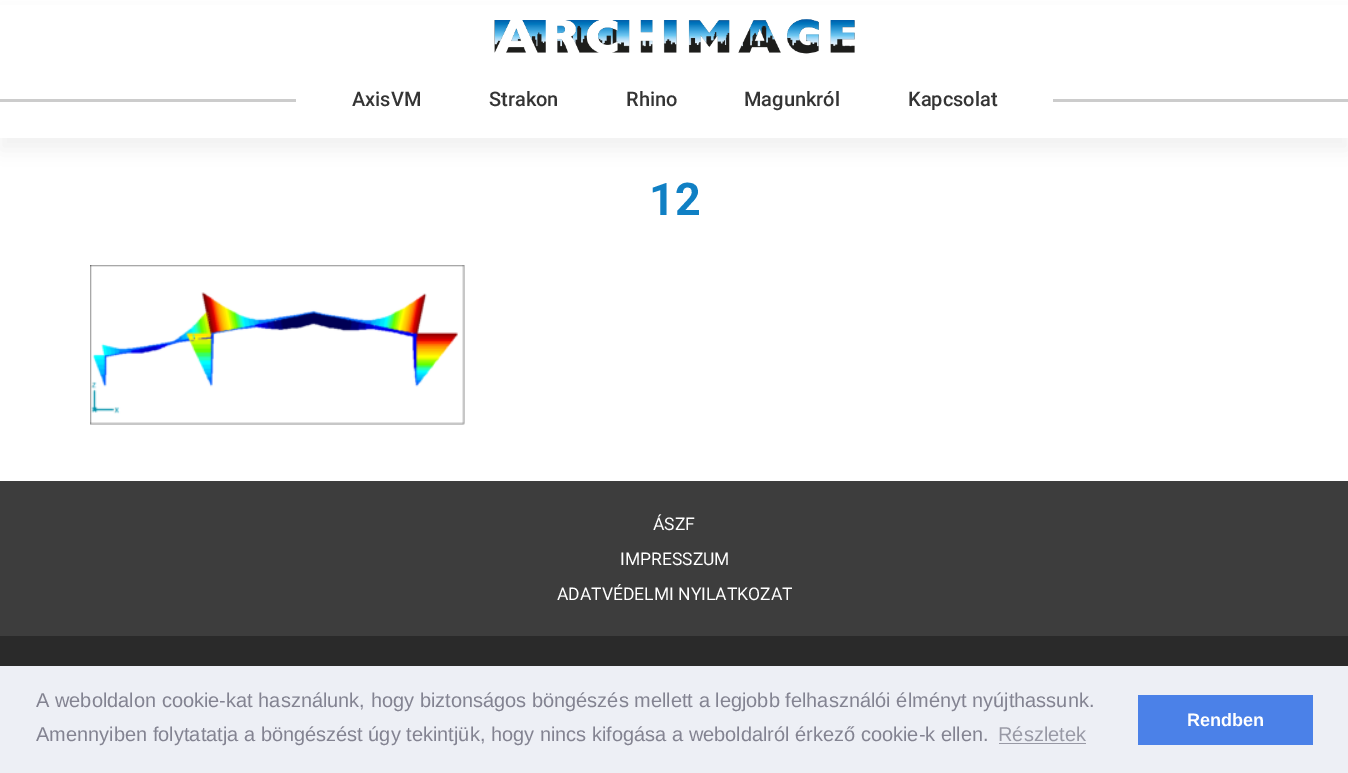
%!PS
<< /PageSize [1348 773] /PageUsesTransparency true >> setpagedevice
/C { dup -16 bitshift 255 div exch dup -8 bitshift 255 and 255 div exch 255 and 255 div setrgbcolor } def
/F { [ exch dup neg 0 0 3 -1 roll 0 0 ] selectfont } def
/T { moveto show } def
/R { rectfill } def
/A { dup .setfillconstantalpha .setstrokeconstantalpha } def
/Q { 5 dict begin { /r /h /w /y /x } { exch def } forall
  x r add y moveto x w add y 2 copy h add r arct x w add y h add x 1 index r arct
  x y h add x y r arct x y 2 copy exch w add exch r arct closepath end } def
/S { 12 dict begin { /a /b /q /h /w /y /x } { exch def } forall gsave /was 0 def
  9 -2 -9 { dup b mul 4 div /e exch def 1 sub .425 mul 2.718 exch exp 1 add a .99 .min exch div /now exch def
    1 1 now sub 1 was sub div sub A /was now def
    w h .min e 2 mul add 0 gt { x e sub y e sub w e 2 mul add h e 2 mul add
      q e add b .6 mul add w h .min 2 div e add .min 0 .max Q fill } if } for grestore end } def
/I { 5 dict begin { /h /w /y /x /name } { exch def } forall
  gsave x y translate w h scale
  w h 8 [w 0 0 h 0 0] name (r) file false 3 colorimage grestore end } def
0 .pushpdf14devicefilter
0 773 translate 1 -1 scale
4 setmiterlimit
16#FFFFFF C
0 0 1348 773 R
16#000000 C
0 13 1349 137 0 9.5 .05 S
16#FFFFFF C
0 5 1348 133 R
(1.rgb) 494 19 361 35 I
16#CCCCCC C
0 99 1348 3 R
16#FFFFFF C
296 99 757 3 R
/Roboto-Medium 20 F
16#343434 C
(AxisVM) 352 106 T
(Strakon) 489 106 T
(Rhino) 626 106 T
(Magunkról) 744 106 T
(Kapcsolat) 908 106 T
/Roboto-Bold 45 F
16#1080C4 C
(12) 649 215 T
(2.rgb) 90 265 375 160 I
16#3D3D3D C
0 481 1348 155 R
/Roboto-Regular 17.5 F
16#FFFFFF C
(ÁSZF) 653 530 T
(IMPRESSZUM) 620 565 T
(ADATVÉDELMI NYILATKOZAT) 557 600 T
16#2A2A2A C
0 636 1348 30 R
16#EDEFF5 C
0 666 1348 107 R
/LiberationSans-Regular 20 F
16#838391 C
(A weboldalon cookie-kat használunk, hogy biztonságos böngészés mellett a legjobb felhasználói élményt nyújthassunk.) 36 707 T
(Amennyiben folytatatja a böngészést úgy tekintjük, hogy nincs kifogása a weboldalról érkező cookie-k ellen.) 36 741 T
16#9899A5 C
(Részletek) 998 741 T
999 743 87 1 R
16#4B81E8 C
1138 695 175 50 R
/LiberationSans-Bold 18 F
16#FFFFFF C
(Rendben) 1187 726 T
.poppdf14devicefilter showpage
